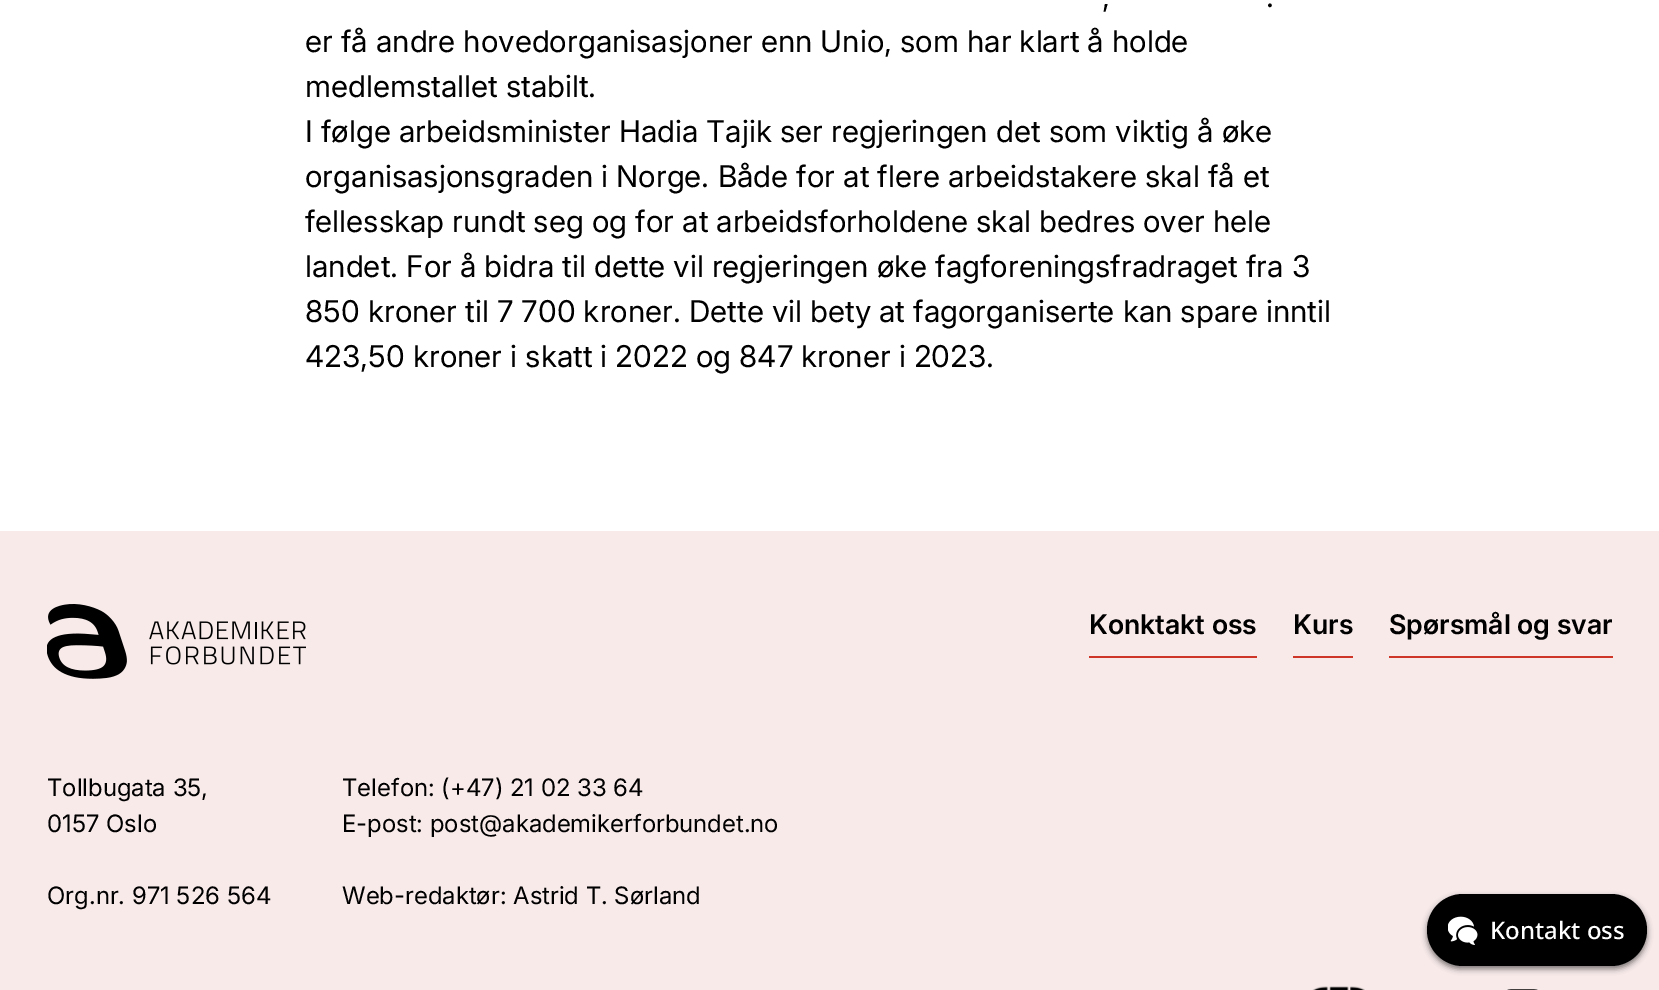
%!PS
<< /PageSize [1659 990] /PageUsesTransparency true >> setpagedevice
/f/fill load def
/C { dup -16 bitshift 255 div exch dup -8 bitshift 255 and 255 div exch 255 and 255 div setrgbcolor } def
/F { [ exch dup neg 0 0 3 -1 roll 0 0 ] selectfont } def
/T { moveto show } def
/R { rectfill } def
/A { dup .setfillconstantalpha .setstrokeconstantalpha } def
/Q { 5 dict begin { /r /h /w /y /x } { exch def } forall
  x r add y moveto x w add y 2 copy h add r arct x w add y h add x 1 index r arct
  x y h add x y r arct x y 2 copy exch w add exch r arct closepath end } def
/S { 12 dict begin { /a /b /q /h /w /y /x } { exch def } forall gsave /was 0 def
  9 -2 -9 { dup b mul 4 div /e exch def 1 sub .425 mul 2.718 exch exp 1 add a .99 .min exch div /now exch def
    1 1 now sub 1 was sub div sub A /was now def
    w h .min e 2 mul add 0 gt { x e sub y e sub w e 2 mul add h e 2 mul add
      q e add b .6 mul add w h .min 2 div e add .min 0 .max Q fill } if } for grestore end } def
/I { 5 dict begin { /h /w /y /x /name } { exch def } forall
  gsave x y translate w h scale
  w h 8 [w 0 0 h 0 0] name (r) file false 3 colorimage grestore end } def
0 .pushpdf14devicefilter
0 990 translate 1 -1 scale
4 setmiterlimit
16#FFFFFF C
0 0 1659 990 R
/Inter-Regular 30 F
16#000000 C
(,) 1102 7 T
(.) 1266 7 T
(er få andre hovedorganisasjoner enn Unio, som har klart å holde) 305 52 T
(medlemstallet stabilt.) 305 97 T
(I følge arbeidsminister Hadia Tajik ser regjeringen det som viktig å øke) 305 142 T
(organisasjonsgraden i Norge. Både for at flere arbeidstakere skal få et) 305 187 T
(fellesskap rundt seg og for at arbeidsforholdene skal bedres over hele) 305 232 T
(landet. For å bidra til dette vil regjeringen øke fagforeningsfradraget fra 3) 305 277 T
(850 kroner til 7 700 kroner. Dette vil bety at fagorganiserte kan spare inntil) 305 322 T
(423,50 kroner i skatt i 2022 og 847 kroner i 2023.) 305 367 T
16#F7EAE9 C
0 531 1659 459 R
(1.rgb) 47 604 259 75 I
16#CE3728 C
1089 656 168 2 R
/Inter-SemiBold 27 F
16#000000 C
(Konktakt oss) 1089 634 T
16#CE3728 C
1293 656 60 2 R
16#000000 C
(Kurs) 1293 634 T
16#CE3728 C
1389 656 224 2 R
16#000000 C
(Spørsmål og svar) 1389 634 T
/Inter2-Regular 24 F
(Tollbugata 35,) 47 796 T
(0157 Oslo) 47 832 T
(Org.nr. 971 526 564) 47 904 T
(Telefon: \(+47\) 21 02 33 64) 342 796 T
(E-post: post@akademikerforbundet.no) 342 832 T
(Web-redaktør: Astrid T. Sørland) 342 904 T
(2.rgb) 1312 986 53 4 I
(3.rgb) 1507 989 31 1 I
1427 897 220 72 36 3 .5 S
1427 894 220 72 36 Q f
(4.rgb) 1448 916 30 29 I
/NotoSans-Medium 24 F
16#FFFFFF C
(Kontakt oss) 1490 939 T
.poppdf14devicefilter showpage
